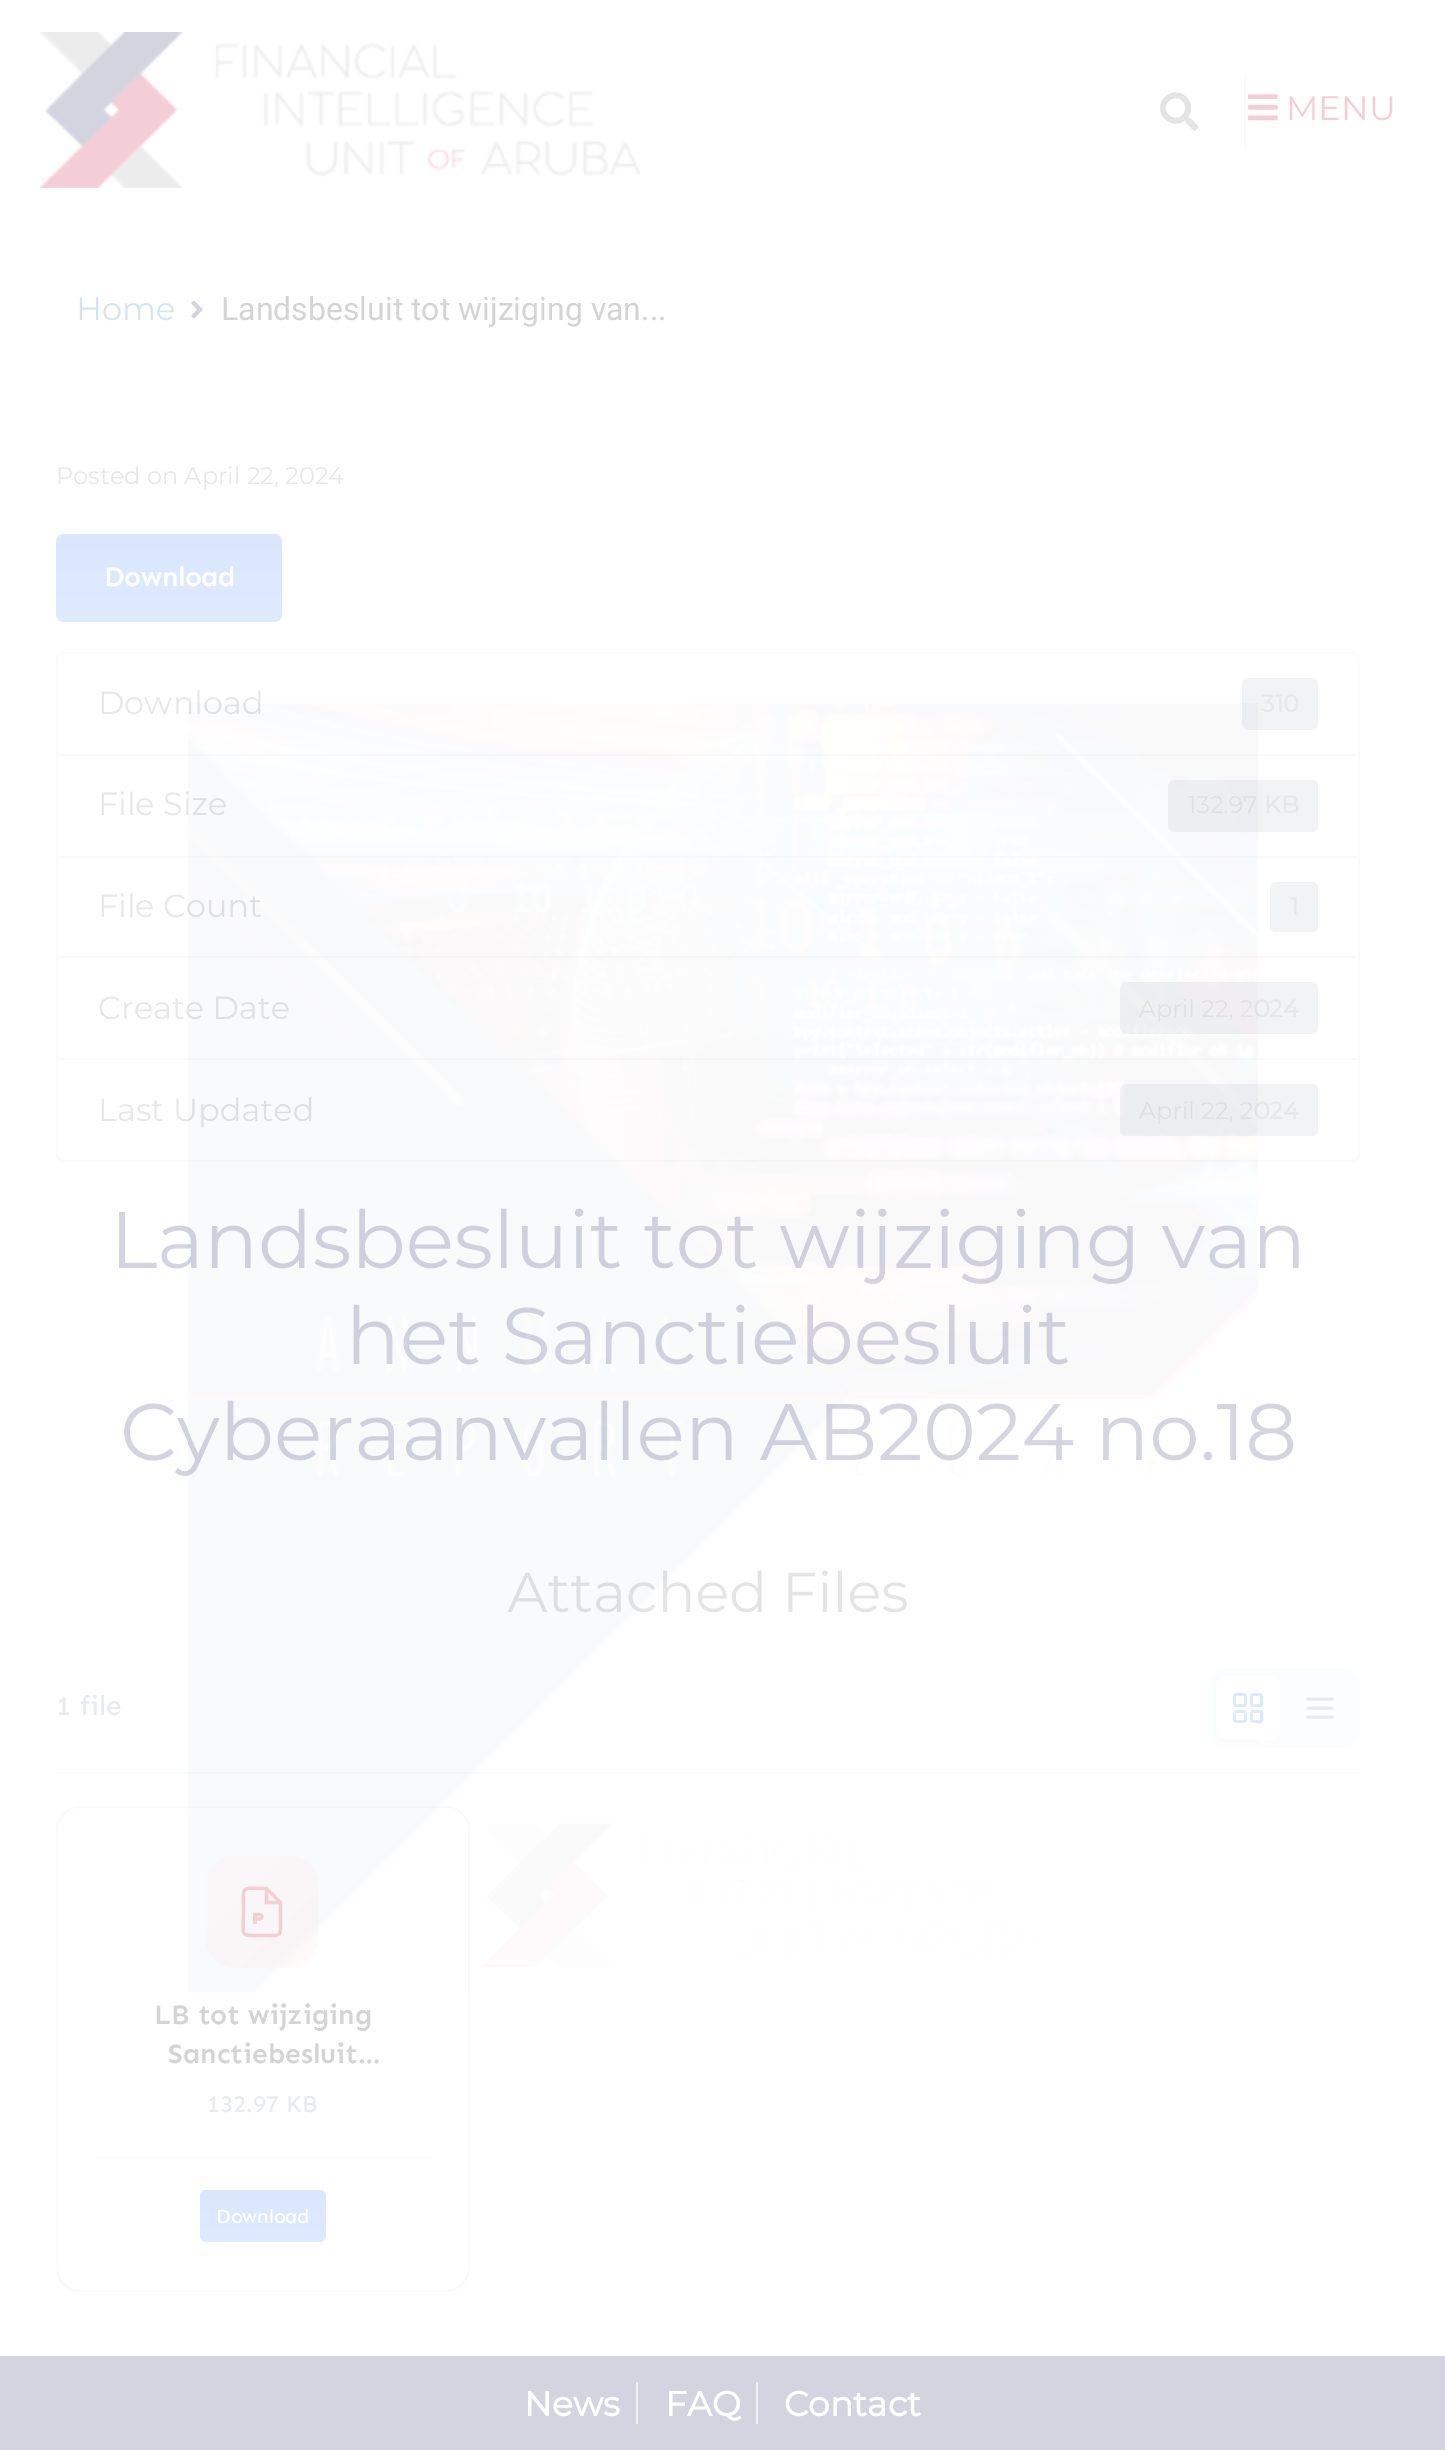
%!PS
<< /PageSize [1445 2450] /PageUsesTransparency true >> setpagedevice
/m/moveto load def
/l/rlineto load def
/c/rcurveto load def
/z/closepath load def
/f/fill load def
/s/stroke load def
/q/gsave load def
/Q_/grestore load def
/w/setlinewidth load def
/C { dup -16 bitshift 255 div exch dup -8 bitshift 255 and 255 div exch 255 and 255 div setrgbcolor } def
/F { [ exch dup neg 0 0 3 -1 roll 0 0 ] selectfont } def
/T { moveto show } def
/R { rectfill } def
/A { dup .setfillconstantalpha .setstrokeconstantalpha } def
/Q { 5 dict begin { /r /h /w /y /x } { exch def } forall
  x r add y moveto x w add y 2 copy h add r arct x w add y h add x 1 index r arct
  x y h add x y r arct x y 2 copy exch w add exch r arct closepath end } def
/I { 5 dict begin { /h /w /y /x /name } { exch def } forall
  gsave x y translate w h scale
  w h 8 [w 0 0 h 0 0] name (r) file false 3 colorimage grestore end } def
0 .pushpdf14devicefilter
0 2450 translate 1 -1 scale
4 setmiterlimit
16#FFFFFF C
0 0 1445 2450 R
16#FAFAFA C
1244 74 2 76 R
(1.rgb) 1160 92 39 39 I
(2.rgb) 1248 94 30 27 I
/Montserrat-Thin 34 F
16#F4CED6 C
(MENU) 1286 120 T
(3.rgb) 40 32 600 156 I
16#D4D4E1 C
0 2356 1445 94 R
/Montserrat-Bold 34.5 F
16#FFFFFF C
(News) 524 2416 T
16#F2F2F2 C
636 2382 2 42 R
16#FFFFFF C
(FAQ) 665 2416 T
16#F2F2F2 C
756 2382 2 42 R
16#FFFFFF C
(Contact) 784 2416 T
/Montserrat-Thin 32 F
16#D6E4F1 C
(Home) 76 320 T
(4.rgb) 191 300 12 19 I
/Roboto-Regular 32 F
16#D4D4D4 C
(Landsbesluit tot wijziging van...) 221 320 T
/Montserrat-Thin 24 F
16#E7E7E7 C
(Posted on April 22, 2024) 56 484 T
16#DBE8FF C
56 534 226 88 8 Q f
0.08 A
q 56 534 226 88 8 Q clip newpath
<< /ShadingType 2 /ColorSpace /DeviceRGB /Coords [169 534 169 622] /Extend [true true] /Function << /FunctionType 2 /Domain [0 1] /C0 [.8 .8 .8] /C1 [1 1 1] /N 1 >> >> shfill Q_
/Sen-SemiBold 28 F
1 A
16#FFFFFF C
104 586 m -.5 0 (Download) ashow
16#FAFAFA C
2 w
64 653 m 1288 0 l 4 0 7 3 7 7 c 0 95 l -1302 0 l 0 -95 l 0 -4 3 -7 7 -7 c z s
/Montserrat-Thin 32 F
16#E7E7E7 C
(Download) 98 714 T
16#F2F3F5 C
1242 678 76 52 6 Q f
/Montserrat-Bold 24 F
16#E7E7E7 C
(310) 1261 712 T
16#FAFAFA C
57 755 1302 102 rectstroke
/Montserrat-Thin 32 F
16#E7E7E7 C
(File Size) 98 815 T
16#F2F3F5 C
1168 780 150 52 6 Q f
/Montserrat-Bold 24 F
16#E7E7E7 C
(132.97 KB) 1188 813 T
16#FAFAFA C
57 857 1302 100 rectstroke
/Montserrat-Thin 32 F
16#E7E7E7 C
(File Count) 98 917 T
16#F2F3F5 C
1270 882 48 50 6 Q f
/Montserrat-Bold 24 F
16#E7E7E7 C
(1) 1290 915 T
16#FAFAFA C
57 957 1302 102 rectstroke
/Montserrat-Thin 32 F
16#E7E7E7 C
(Create Date) 98 1019 T
16#F2F3F5 C
1120 982 198 52 6 Q f
/Montserrat-Bold 24 F
16#E7E7E7 C
(April 22, 2024) 1139 1017 T
16#FFFFFF C
57 1059 m 1302 0 l 0 95 l 0 4 -3 7 -7 7 c -1288 0 l -4 0 -7 -3 -7 -7 c z q f Q_
16#FAFAFA C
s
/Montserrat-Thin 32 F
16#E7E7E7 C
(Last Updated) 98 1121 T
16#F2F3F5 C
1120 1084 198 52 6 Q f
/Montserrat-Bold 24 F
16#E7E7E7 C
(April 22, 2024) 1139 1119 T
/Montserrat-Thin 80 F
16#D4D4E1 C
(Landsbesluit tot wijziging van) 110 1268 T
(het Sanctiebesluit) 346 1364 T
(Cyberaanvallen AB2024 no.18) 120 1460 T
/Montserrat-Thin 56 F
16#E7E7E7 C
(Attached Files) 507 1612 T
16#F9FAFC C
56 1772 1304 2 R
/Sen-Medium 28 F
16#E9EBEF C
(1 file) 56 1715 T
16#FCFDFE C
1208 1668 152 80 16 Q f
16#FFFFFF C
1216 1676 64 64 12 Q f
16#DBE8FF C
3 w
1234.5 1694.5 11 11 1.5 Q s
1251.5 1694.5 10 11 1.5 Q s
1234.5 1711.5 11 10 1.5 Q s
1251.5 1711.5 10 10 1.5 Q s
16#E8EAEF C
1306.5 1699 m 27 0 l 1306.5 1708 m 27 0 l 1306.5 1717 m 27 0 l s
16#FAFAFB C
2 w
57 1807 412 484 23 Q s
q 206 1856 112 112 28 Q clip newpath
<< /ShadingType 2 /ColorSpace /DeviceRGB /Coords [206 1856 318 1968] /Extend [true true] /Function << /FunctionType 2 /Domain [0 1] /C0 [1 .988 .988] /C1 [1 .976 .976] /N 1 >> >> shfill Q_
16#F8D4D4 C
3.5 w
266.5 1888.5 m -26.5 0 -23 -4.5 -23 23.5 c 0 25 -5 23.5 18.5 23.5 c 9.5 0 l 8.5 0 9 -1 9 -9.5 c 0 -23.5 l z 266.5 1888.5 m 0 14 l 14 0 l 255 1919 m 0 -4.5 l 5 0 l 2.5 .5 2.5 3.5 .5 4.5 c z s
0.88 A
253 1915 4 9 R
/Sen-SemiBold 28 F
1 A
16#D4D4D4 C
(LB tot wijziging) 154 2024 T
(Sanctiebesluit…) 168 2063 T
/Sen-Medium 24 F
16#E9EBEF C
(132.97 KB) 207 2112 T
16#FCFDFE C
90 2156 346 2 R
16#DBE8FF C
200 2190 126 52 6 Q f
0.08 A
q 200 2190 126 52 6 Q clip newpath
<< /ShadingType 2 /ColorSpace /DeviceRGB /Coords [263 2190 263 2242] /Extend [true true] /Function << /FunctionType 2 /Domain [0 1] /C0 [.8 .8 .8] /C1 [1 1 1] /N 1 >> >> shfill Q_
/Sen-Medium 20 F
1 A
16#FFFFFF C
216 2223 m -.25 0 (Download) ashow
(5.rgb) 188 703 1070 1289 I
.poppdf14devicefilter showpage
